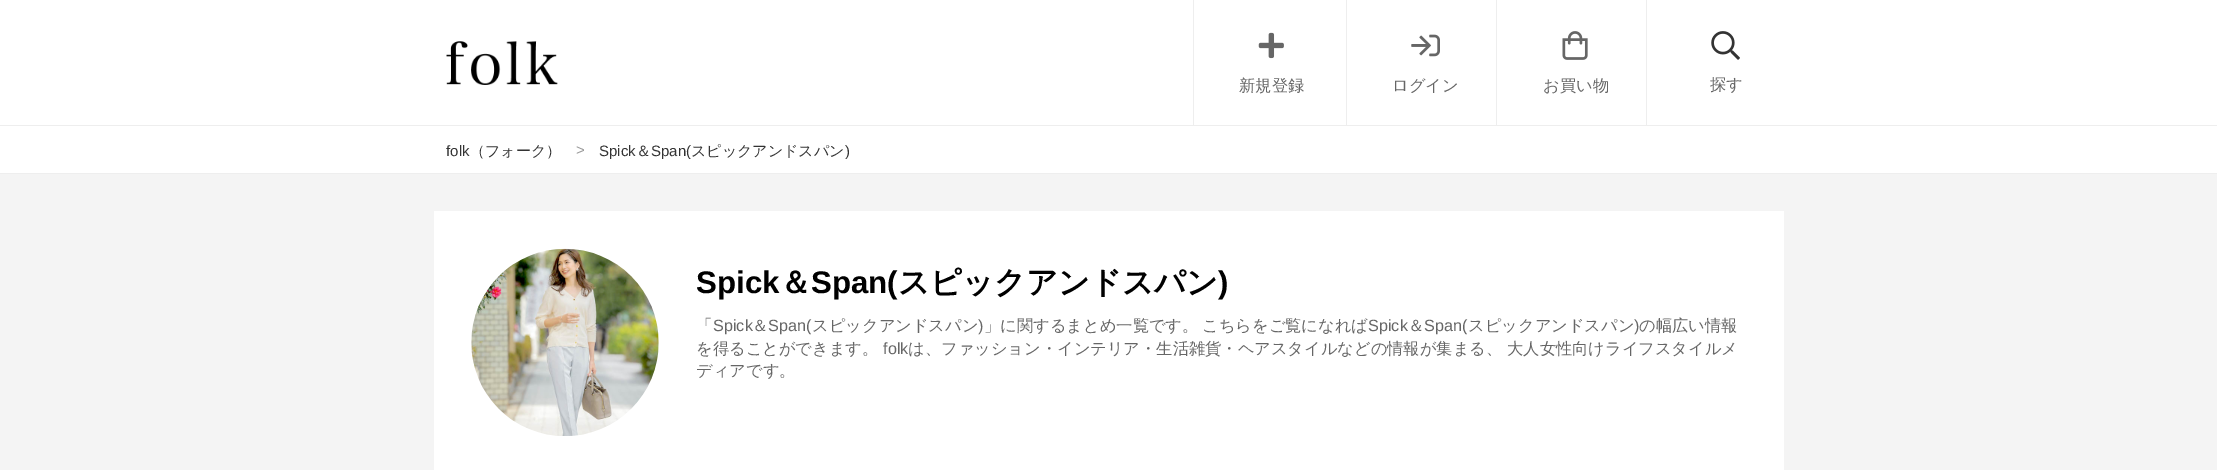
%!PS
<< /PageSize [2217 470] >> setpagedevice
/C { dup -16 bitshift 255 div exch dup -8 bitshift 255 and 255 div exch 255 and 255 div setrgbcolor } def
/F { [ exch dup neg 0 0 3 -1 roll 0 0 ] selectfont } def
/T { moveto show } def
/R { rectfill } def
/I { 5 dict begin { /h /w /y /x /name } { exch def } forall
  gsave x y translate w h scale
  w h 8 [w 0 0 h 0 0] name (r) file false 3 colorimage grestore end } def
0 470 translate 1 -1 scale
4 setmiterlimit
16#F4F4F4 C
0 0 2217 470 R
16#FFFFFF C
0 0 2217 125 R
(1.rgb) 446 41 112 44 I
16#EEEEEE C
1193 0 1 125 R
(2.rgb) 1258 32 26 27 I
/WenQuanYiZenHei-Medium 16.25 F
16#666666 C
(新規登録) 1239 91 T
16#EEEEEE C
1346 0 1 125 R
(3.rgb) 1411 34 29 23 I
16#666666 C
(ログイン) 1392 91 T
16#EEEEEE C
1496 0 1 125 R
(4.rgb) 1562 31 26 29 I
16#666666 C
(お買い物) 1543 91 T
16#EEEEEE C
1646 0 1 125 R
(5.rgb) 1711 31 29 29 I
16#666666 C
(探す) 1710 90 T
16#FFFFFF C
0 126 2217 47 R
16#EEEEEE C
0 125 2217 1 R
0 173 2217 1 R
/LiberationSans-Regular 15 F
16#333333 C
(folk) 446 156 T
/WenQuanYiZenHei-Medium 15 F
(（フォーク）) 470 156 T
/LiberationSans-Regular 15 F
16#999999 C
(>) 576 155 T
16#333333 C
(Spick) 599 156 T
/WenQuanYiZenHei-Medium 15 F
(＆) 636 156 T
/LiberationSans-Regular 15 F
(Span\() 651 156 T
/WenQuanYiZenHei-Medium 15 F
(スピックアンドスパン) 691 156 T
/LiberationSans-Regular 15 F
(\)) 845 156 T
16#FFFFFF C
434 211 1350 259 R
(6.rgb) 471 248 188 188 I
/LiberationSans-Bold 31.25 F
16#000000 C
(Spick) 696 293 T
/WenQuanYiZenHei-Bold 31.25 F
(＆) 780 293 T
/LiberationSans-Bold 31.25 F
(Span\() 811 293 T
/WenQuanYiZenHei-Bold 31.25 F
(スピックアンドスパン) 898 293 T
/LiberationSans-Bold 31.25 F
(\)) 1218 293 T
/WenQuanYiZenHei-Medium 16.25 F
16#666666 C
(「) 696 331 T
/LiberationSans-Regular 16.25 F
(Spick) 713 331 T
/WenQuanYiZenHei-Medium 16.25 F
(＆) 752 331 T
/LiberationSans-Regular 16.25 F
(Span\() 768 331 T
/WenQuanYiZenHei-Medium 16.25 F
(スピックアンドスパン) 812 331 T
/LiberationSans-Regular 16.25 F
(\)) 978 331 T
/WenQuanYiZenHei-Medium 16.25 F
(」に関するまとめ一覧です。) 984 331 T
(こちらをご覧になれば) 1202 331 T
/LiberationSans-Regular 16.25 F
(Spick) 1368 331 T
/WenQuanYiZenHei-Medium 16.25 F
(＆) 1408 331 T
/LiberationSans-Regular 16.25 F
(Span\() 1424 331 T
/WenQuanYiZenHei-Medium 16.25 F
(スピックアンドスパン) 1468 331 T
/LiberationSans-Regular 16.25 F
(\)) 1634 331 T
/WenQuanYiZenHei-Medium 16.25 F
(の幅広い情報) 1639 331 T
(を得ることができます。) 696 354 T
/LiberationSans-Regular 16.25 F
(folk) 883 354 T
/WenQuanYiZenHei-Medium 16.25 F
(は、ファッション・インテリア・生活雑貨・ヘアスタイルなどの情報が集まる、) 908 354 T
(大人女性向けライフスタイルメ) 1507 354 T
(ディアです。) 696 376 T
showpage
